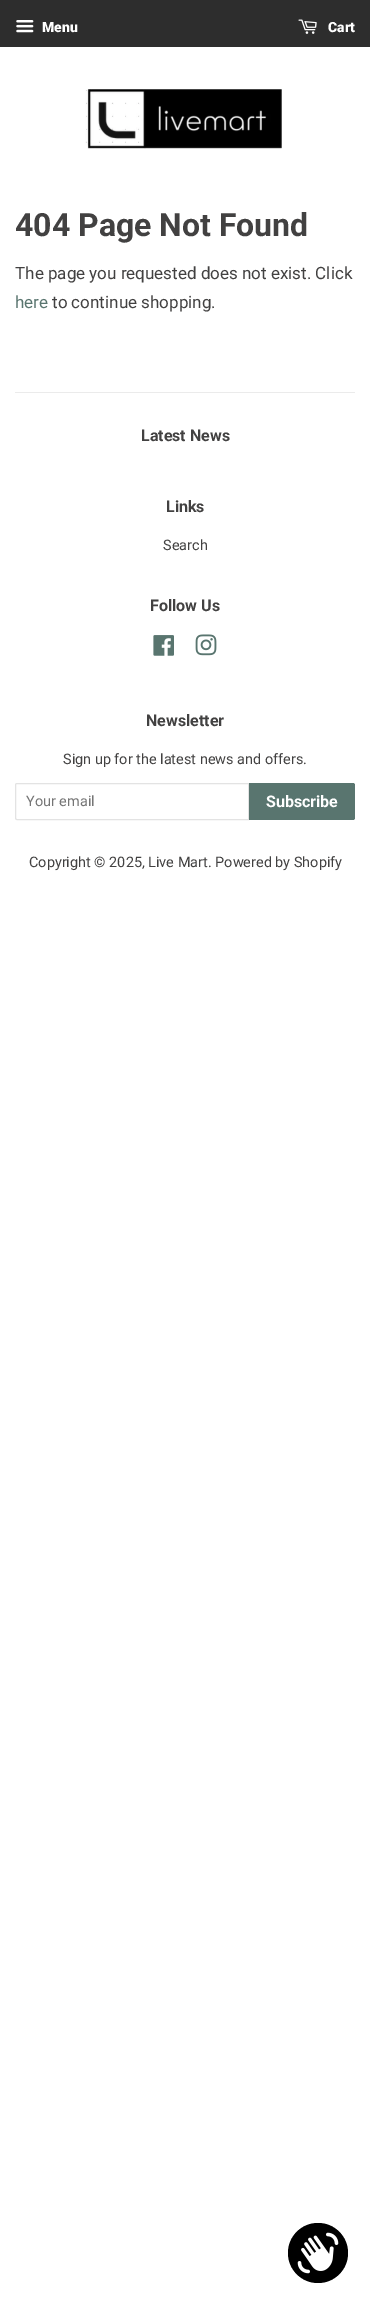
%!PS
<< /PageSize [370 2304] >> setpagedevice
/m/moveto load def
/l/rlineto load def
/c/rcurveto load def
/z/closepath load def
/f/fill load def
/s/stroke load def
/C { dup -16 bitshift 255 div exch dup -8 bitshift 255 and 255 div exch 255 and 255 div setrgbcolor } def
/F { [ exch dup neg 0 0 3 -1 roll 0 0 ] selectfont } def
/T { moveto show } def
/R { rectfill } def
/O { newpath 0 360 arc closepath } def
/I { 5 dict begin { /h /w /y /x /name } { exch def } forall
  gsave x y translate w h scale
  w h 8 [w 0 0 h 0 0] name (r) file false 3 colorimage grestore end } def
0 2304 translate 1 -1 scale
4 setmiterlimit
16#FFFFFF C
0 0 370 2304 R
16#2D2D2D C
0 0 370 47 R
(1.rgb) 16 20 18 13 I
/Roboto-Black 14 F
16#FFFFFF C
(Menu) 42 32 T
(2.rgb) 298 19 19 15 I
(Cart) 328 32 T
(3.rgb) 85 89 197 60 I
/Roboto-Bold 32 F
16#424141 C
(404 Page Not Found) 15 236 T
/Roboto-Regular 17 F
(The page you requested does not exist. Click) 15 279 T
16#59756F C
(here) 15 308 T
16#424141 C
(to continue shopping.) 52 308 T
16#EBEBEB C
15 392 340 1 R
/Roboto-Bold 16 F
16#424141 C
(Latest News) 141 441 T
(Links) 166 512 T
/Roboto-Regular 14.45 F
(Search) 163 550 T
/Roboto-Bold 16 F
(Follow Us) 150 611 T
(4.rgb) 153 635 21 21 I
(5.rgb) 195 634 22 22 I
(Newsletter) 146 726 T
/Roboto-Regular 14.45 F
(Sign up for the latest news and offers.) 63 764 T
16#E3E3E3 C
17 783.5 m 231.5 0 l 0 36 l -231.5 0 l -1 0 -1.5 -.5 -1.5 -1.5 c 0 -33 l 0 -1 .5 -1.5 1.5 -1.5 c z s
16#757575 C
(Your email) 26 806 T
16#59756F C
249 783 m 104 0 l 1 0 2 1 2 2 c 0 33 l 0 1 -1 2 -2 2 c -104 0 l z f
/Roboto-Bold 16 F
16#FFFFFF C
(Subscribe) 266 807 T
/Roboto-Regular 14.45 F
16#424141 C
(Copyright © 2025, Live Mart. Powered by Shopify) 29 867 T
16#000000 C
318 2253 30 O f
(6.rgb) 297 2232 42 42 I
showpage
